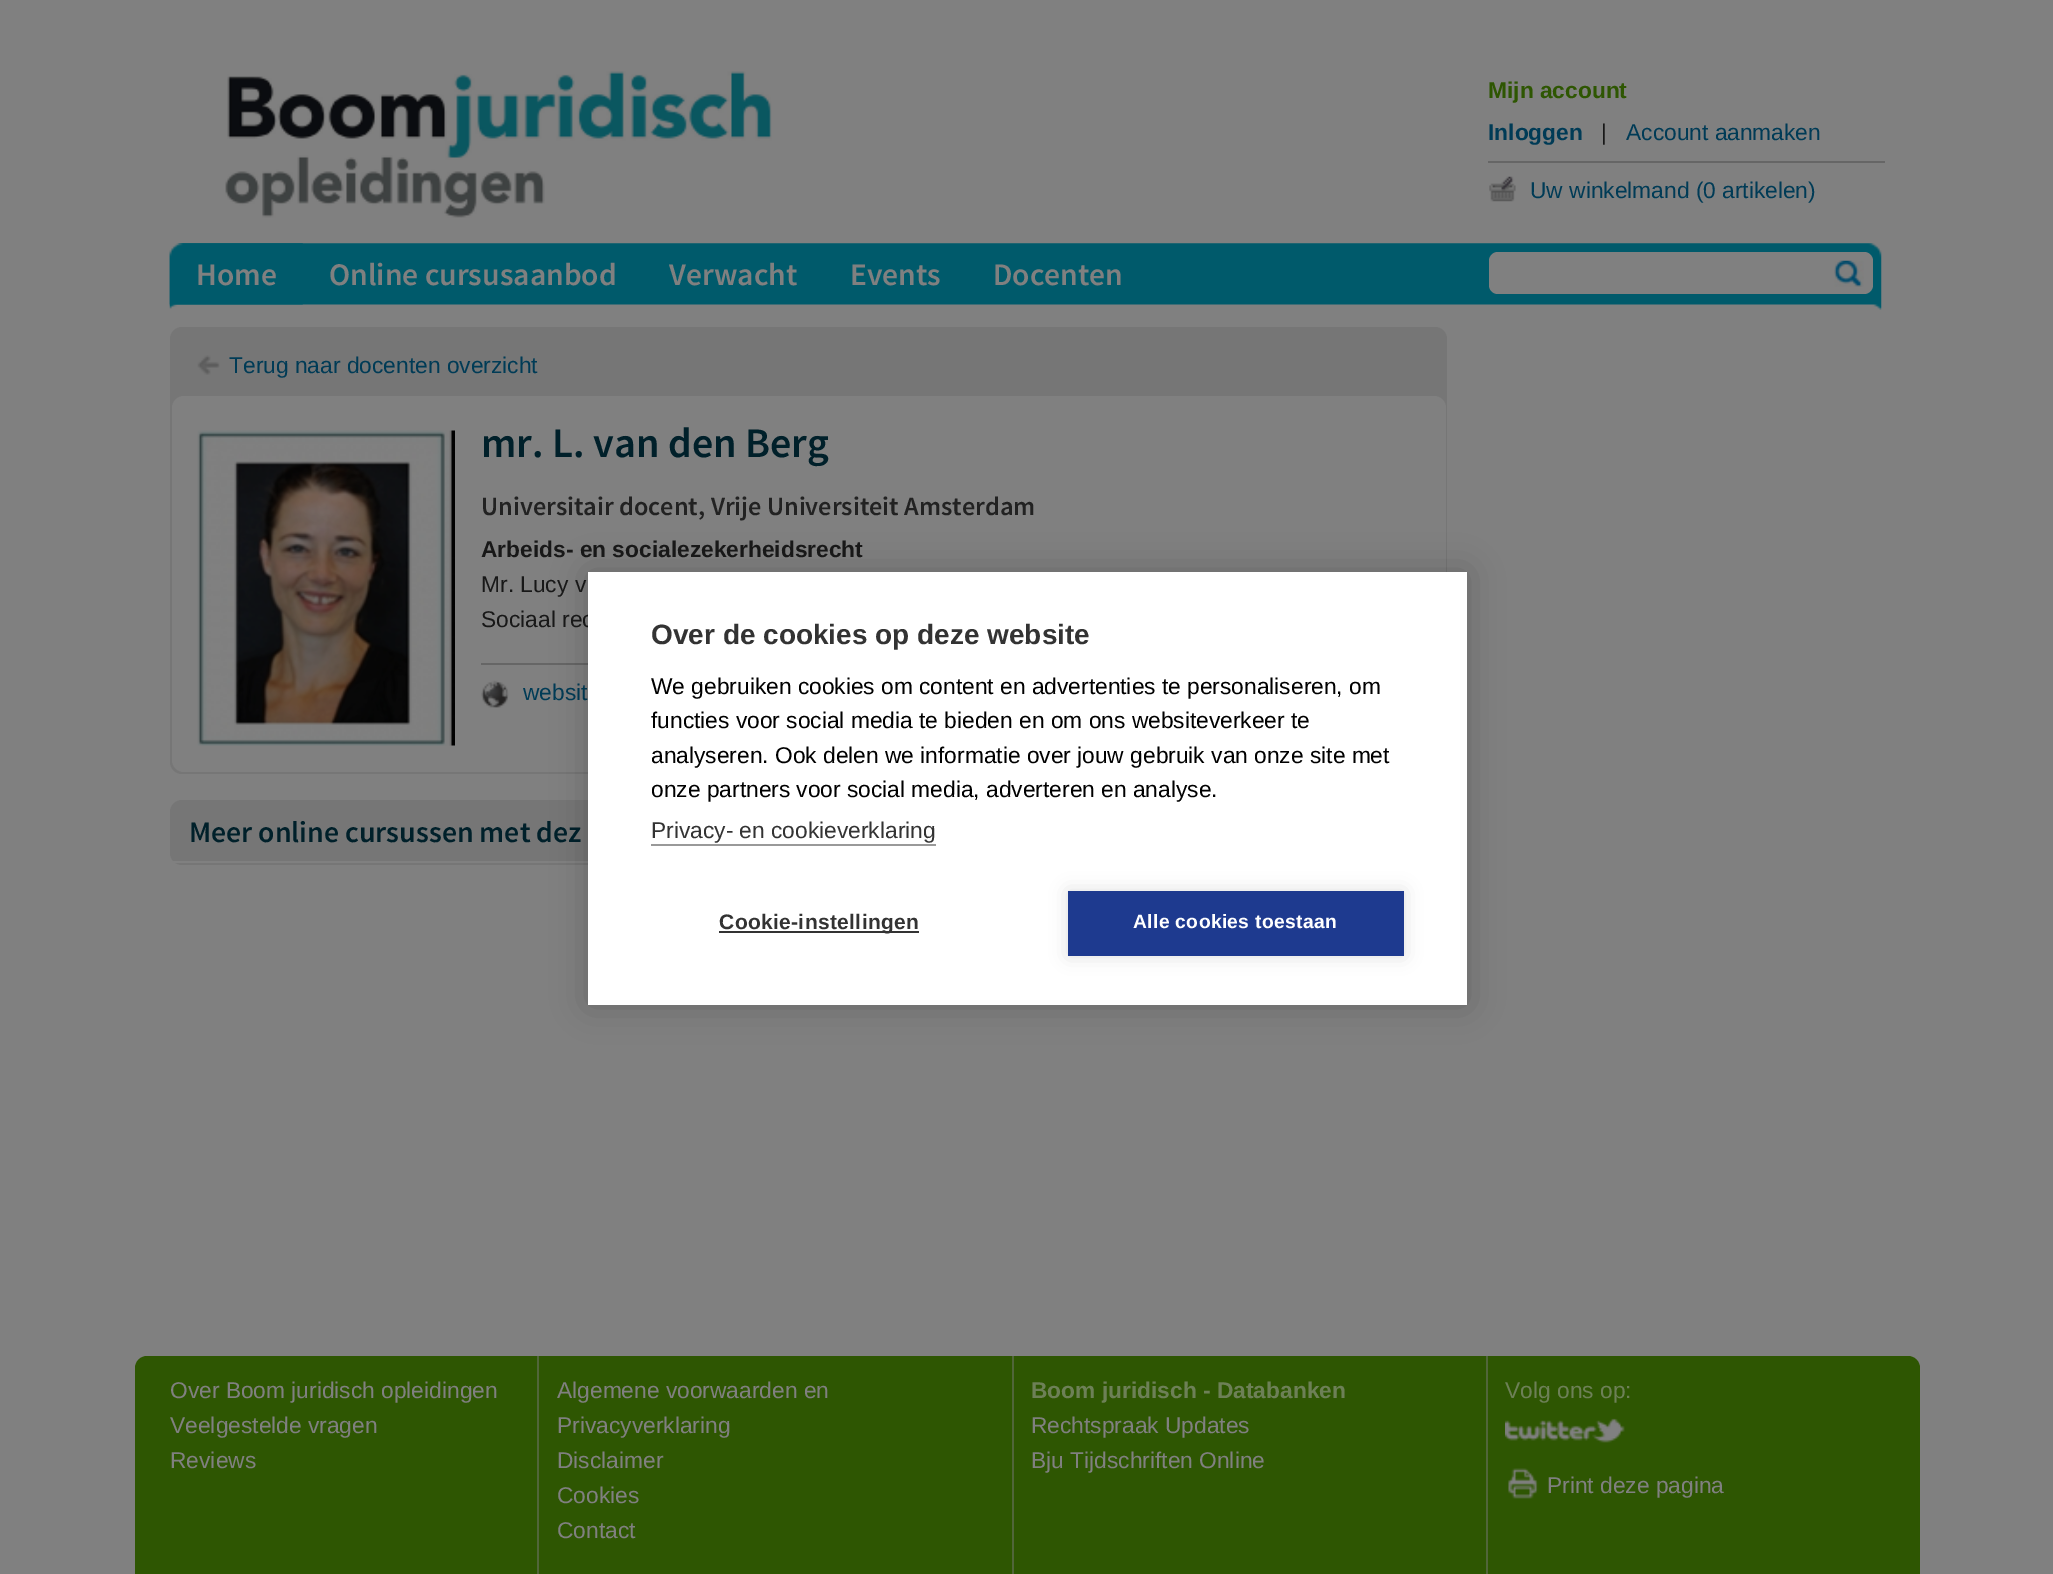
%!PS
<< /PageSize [2053 1574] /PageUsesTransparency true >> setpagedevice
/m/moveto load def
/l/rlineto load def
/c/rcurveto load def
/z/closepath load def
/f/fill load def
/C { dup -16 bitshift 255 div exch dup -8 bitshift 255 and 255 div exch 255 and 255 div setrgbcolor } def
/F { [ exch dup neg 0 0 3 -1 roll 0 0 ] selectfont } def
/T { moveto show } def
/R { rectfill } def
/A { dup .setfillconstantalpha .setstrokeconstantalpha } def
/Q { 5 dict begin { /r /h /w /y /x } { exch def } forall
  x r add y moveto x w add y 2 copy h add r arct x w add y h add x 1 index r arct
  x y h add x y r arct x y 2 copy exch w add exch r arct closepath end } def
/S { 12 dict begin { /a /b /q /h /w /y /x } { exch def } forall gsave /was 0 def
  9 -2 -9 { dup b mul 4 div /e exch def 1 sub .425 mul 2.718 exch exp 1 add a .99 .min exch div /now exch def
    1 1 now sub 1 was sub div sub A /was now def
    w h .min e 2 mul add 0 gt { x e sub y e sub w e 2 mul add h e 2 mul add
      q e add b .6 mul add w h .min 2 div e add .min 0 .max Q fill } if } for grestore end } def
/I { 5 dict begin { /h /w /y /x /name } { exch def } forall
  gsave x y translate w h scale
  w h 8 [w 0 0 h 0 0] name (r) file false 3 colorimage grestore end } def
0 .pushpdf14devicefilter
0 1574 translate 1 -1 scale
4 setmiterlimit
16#808080 C
0 0 2053 1574 R
(1.rgb) 225 71 547 147 I
/LiberationSans-Bold 22.75 F
16#2E5602 C
(Mijn account) 1488 98 T
16#003B56 C
(Inloggen) 1488 140 T
/LiberationSans-Regular 22.75 F
16#181818 C
(|) 1601 140 T
16#003B56 C
(Account aanmaken) 1626 140 T
(2.rgb) 1489 176 27 26 I
16#666666 C
1488 161 397 2 R
16#003B56 C
(Uw winkelmand \(0 artikelen\)) 1530 198 T
(3.rgb) 169 243 1713 67 I
(4.rgb) 169 243 134 62 I
/SourceSansPro-SemiBold 31.5 F
16#808080 C
(Home) 196 285 T
(Online cursusaanbod) 329 285 T
(Verwacht) 669 285 T
(Events) 850 285 T
(Docenten) 993 285 T
1489 252 384 42 9 Q f
(5.rgb) 1834 260 30 27 I
16#767676 C
170 327 1277 447 12 Q f
(6.rgb) 197 355 23 20 I
/LiberationSans-Regular 22.75 F
16#003B56 C
(Terug naar docenten overzicht) 229 373 T
16#808080 C
172 396 1274 376 12 Q f
(7.rgb) 197 430 258 316 I
/SourceSansPro-SemiBold 42 F
16#00202A C
(mr. L. van den Berg) 481 457 T
/SourceSansPro-SemiBold 26.25 F
16#222222 C
(Universitair docent, Vrije Universiteit Amsterdam) 481 515 T
/LiberationSans-Bold 22.75 F
16#181818 C
(Arbeids- en socialezekerheidsrecht) 481 557 T
/LiberationSans-Regular 22.75 F
(Mr. Lucy v) 481 592 T
(Sociaal rec) 481 627 T
16#666666 C
481 663 107 2 R
(8.rgb) 481 680 28 28 I
16#003B56 C
(websit) 523 700 T
16#767676 C
170 800 1277 65 12 Q f
/SourceSansPro-SemiBold 29.75 F
16#00202A C
(Meer online cursussen met dez) 189 842 T
16#808080 C
172 861 1274 2 1 Q f
16#2E5602 C
147 1356 m 1761 0 l 6.5 0 12 5.5 12 12 c 0 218 l -1785 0 l 0 -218 l 0 -6.5 5.5 -12 12 -12 c z f
16#51663A C
537 1356 2 218 R
/LiberationSans-Regular 22.75 F
16#808080 C
(Over Boom juridisch opleidingen) 170 1398 T
(Veelgestelde vragen) 170 1433 T
(Reviews) 170 1468 T
16#51663A C
1012 1356 2 218 R
16#808080 C
(Algemene voorwaarden en) 557 1398 T
(Privacyverklaring) 557 1433 T
(Disclaimer) 557 1468 T
(Cookies) 557 1503 T
(Contact) 557 1538 T
16#51663A C
1486 1356 2 218 R
/LiberationSans-Bold 22.75 F
16#6D8057 C
(Boom juridisch - Databanken) 1031 1398 T
/LiberationSans-Regular 22.75 F
16#808080 C
(Rechtspraak Updates) 1031 1433 T
(Bju Tijdschriften Online) 1031 1468 T
16#6D8057 C
(Volg ons op:) 1505 1398 T
(9.rgb) 1505 1418 120 25 I
(10.rgb) 1508 1468 31 31 I
16#808080 C
(Print deze pagina) 1547 1493 T
16#000000 C
588 572 879 433 0 17.5 .2 S
16#FFFFFF C
588 572 879 433 R
/LiberationSans-Bold 28 F
16#333333 C
(Over de cookies op deze website) 651 644 T
/LiberationSans-Regular 22.75 F
16#000000 C
(We gebruiken cookies om content en advertenties te personaliseren, om) 651 694 T
(functies voor social media te bieden en om ons websiteverkeer te) 651 728 T
(analyseren. Ook delen we informatie over jouw gebruik van onze site met) 651 763 T
(onze partners voor social media, adverteren en analyse.) 651 797 T
16#333333 C
(Privacy- en cookieverklaring) 651 838 T
16#999999 C
651 844 285 2 R
16#333333 C
719 931 200 2 R
/LiberationSans-Bold 21 F
719 929 m .35 0 (Cookie-instellingen) ashow
16#000000 C
1068 891 336 65 0 9 .12 S
16#1E3A8F C
1068 891 336 65 R
/LiberationSans-Bold 19.25 F
16#FFFFFF C
1133 928 m .35 0 (Alle cookies toestaan) ashow
.poppdf14devicefilter showpage
